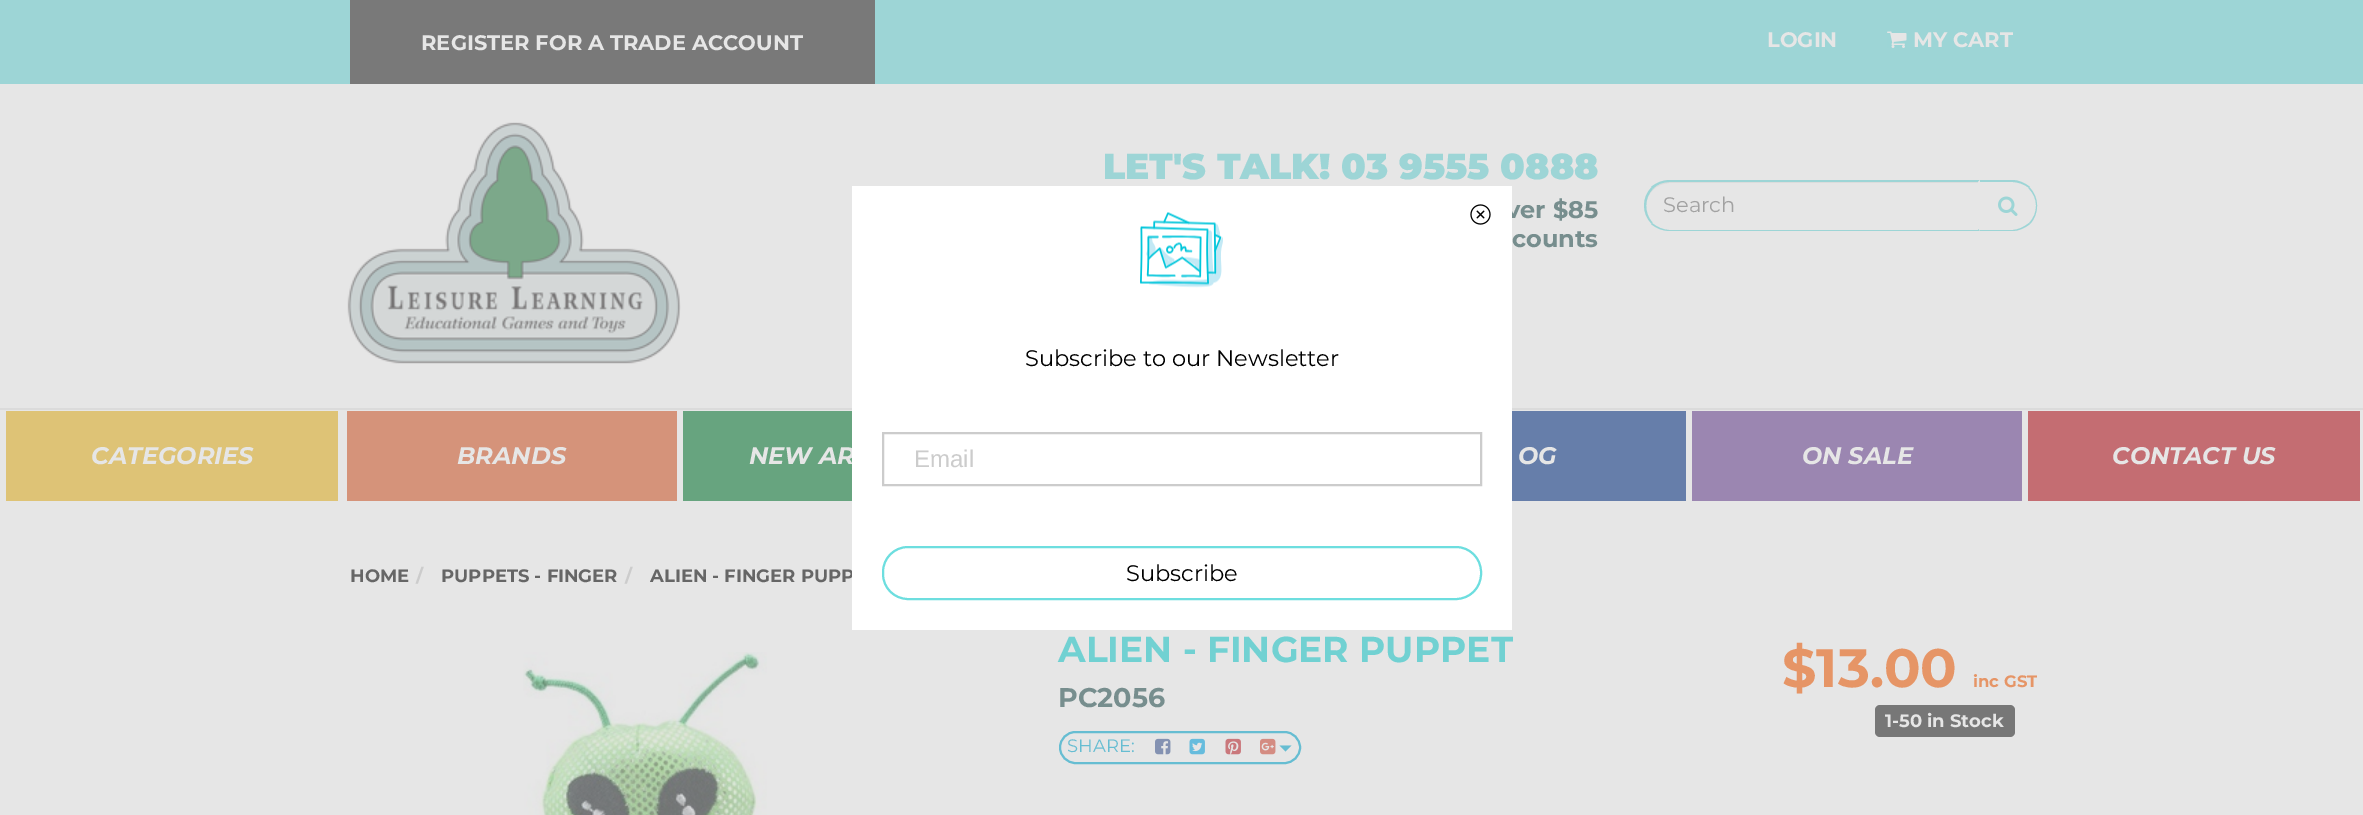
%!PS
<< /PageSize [2363 815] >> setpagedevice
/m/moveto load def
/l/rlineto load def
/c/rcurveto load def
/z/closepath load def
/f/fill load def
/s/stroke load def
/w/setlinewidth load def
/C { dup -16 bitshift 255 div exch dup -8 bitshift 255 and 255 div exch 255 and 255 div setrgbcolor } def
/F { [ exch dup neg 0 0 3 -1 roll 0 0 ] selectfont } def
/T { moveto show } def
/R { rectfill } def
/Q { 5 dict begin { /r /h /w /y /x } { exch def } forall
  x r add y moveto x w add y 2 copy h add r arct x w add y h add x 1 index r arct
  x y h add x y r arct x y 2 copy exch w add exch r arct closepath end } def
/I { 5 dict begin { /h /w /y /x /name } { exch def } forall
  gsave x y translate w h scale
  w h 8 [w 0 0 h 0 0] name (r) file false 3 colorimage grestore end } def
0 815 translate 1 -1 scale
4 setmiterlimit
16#E6E6E6 C
0 0 2363 815 R
16#9DD5D6 C
0 0 2363 84 R
16#797979 C
350 0 525 84 R
/Montserrat-Bold 21 F
16#E6E6E6 C
(REGISTER FOR A TRADE ACCOUNT) 421 50 T
(LOGIN) 1767 47 T
(1.rgb) 1887 31 20 17 I
(MY CART) 1913 47 T
16#DBDBDB C
0 408 2363 2 R
(2.rgb) 347 122 334 242 I
/Montserrat-Black 36 F
16#9DD5D6 C
(LET'S TALK! 03 9555 0888) 1103 179 T
/Montserrat-Bold 24 F
16#778E8E C
(ver $85) 1506 218 T
(counts) 1512 247 T
16#9DD5D6 C
1978 180 m 2 2 l 32 0 l 6 0 12 2 17 6 c 1 -1 l -5 -4 -11 -7 -18 -7 c z f
2029.5 187.5 m 10 9.5 10 26.5 .5 36.5 c -1 -1 l 9.5 -9.5 9.5 -25.5 -.5 -34.5 c z f
1978 231 m 34 0 l 7 0 13 -3 18 -7 c -1 -1 l -5 4 -11 7 -17 7 c -32 0 l z f
16#E6E6E6 C
1669.5 180 m 310.5 0 l 0 51 l -310.5 0 l -14 0 -25.5 -11.5 -25.5 -25.5 c 0 -14 11.5 -25.5 25.5 -25.5 c z f
16#DCDCDC C
1670 183 m 308 0 l 0 47 l 1 0 l 0 -48 l -309 0 l -13 0 -24 11 -24 24 c 0 -12 10 -23 24 -23 c z f
16#9DD5D6 C
1670 180 m -8 0 -14 3 -19 7 c 2 2 l 4 -5 10 -7 17 -7 c 308 0 l 2 -2 l z f
16#E6E6E6 C
1980 180 m -2 2 l 0 47 l 2 2 l z f
16#9DD5D6 C
1980 231 m -2 -2 l 0 1 l -308 0 l -7 0 -13 -3 -18 -7 c -1 1 l 5 4 11 7 19 7 c z f
1651.5 223.5 m -10 -9.5 -10 -26.5 0 -36 c 1.5 1.5 l -9 8.5 -9 24.5 -.5 33.5 c z f
/Montserrat-Thin 21 F
16#A2A2A2 C
(Search) 1663 212 T
(3.rgb) 1998 196 20 20 I
16#67A47F C
683 411 169 90 R
/Montserrat-ThinItalic 24 F
16#E6E6E6 C
(NEW AR) 749 464 T
/Montserrat-Bold 18 F
16#666666 C
(ALIEN - FINGER PUPP) 650 582 T
16#FFFFFF C
852 186 660 444 R
(4.rgb) 1470 204 21 21 I
(5.rgb) 1140 212 83 76 I
/Montserrat-Thin 22.5 F
16#000000 C
(Subscribe to our Newsletter) 1025 366 T
16#CCCCCC C
2 w
883 433 598 52 rectstroke
/LiberationSans-Regular 24 F
(Email) 914 467 T
16#6DDEDF C
883 547 598 52 25 Q s
/Montserrat-Thin 22.5 F
16#000000 C
(Subscribe) 1126 581 T
16#DEC376 C
6 411 332 90 R
/Montserrat-ThinItalic 24 F
16#E6E6E6 C
(CATEGORIES) 91 464 T
16#D5937A C
347 411 330 90 R
16#E6E6E6 C
(BRANDS) 457 464 T
16#667EAA C
1512 411 174 90 R
16#E6E6E6 C
(OG) 1518 464 T
16#9B86B1 C
1692 411 330 90 R
16#E6E6E6 C
(ON SALE) 1802 464 T
16#C46D72 C
2028 411 332 90 R
16#E6E6E6 C
(CONTACT US) 2112 464 T
/Montserrat-Bold 18 F
16#666666 C
(HOME) 350 582 T
16#CCCCCC C
(/) 416 582 T
16#666666 C
(PUPPETS - FINGER) 441 582 T
16#CCCCCC C
(/) 625 582 T
(6.rgb) 523 652 244 163 I
/Montserrat-Bold 36 F
16#71D1D2 C
(ALIEN - FINGER PUPPET) 1058 662 T
/Montserrat-Bold 27 F
16#778E8E C
(PC2056) 1058 707 T
16#66BDD2 C
1060 732 240 31 15.5 Q s
/Montserrat-Thin 18 F
(SHARE:) 1067 752 T
(7.rgb) 1155 738 16 17 I
(8.rgb) 1189 738 16 17 I
(9.rgb) 1225 738 16 17 I
(10.rgb) 1260 738 16 17 I
1279.5 745.5 m 12 0 l -6 6 l z f
/Montserrat-Bold 54 F
16#E69566 C
($13.00) 1782 687 T
/Montserrat-Bold 16.5 F
(inc GST) 1973 687 T
16#777777 C
1875 705 140 32 5 Q f
/Montserrat-Bold 18 F
16#E6E6E6 C
(1-50 in Stock) 1885 727 T
showpage
